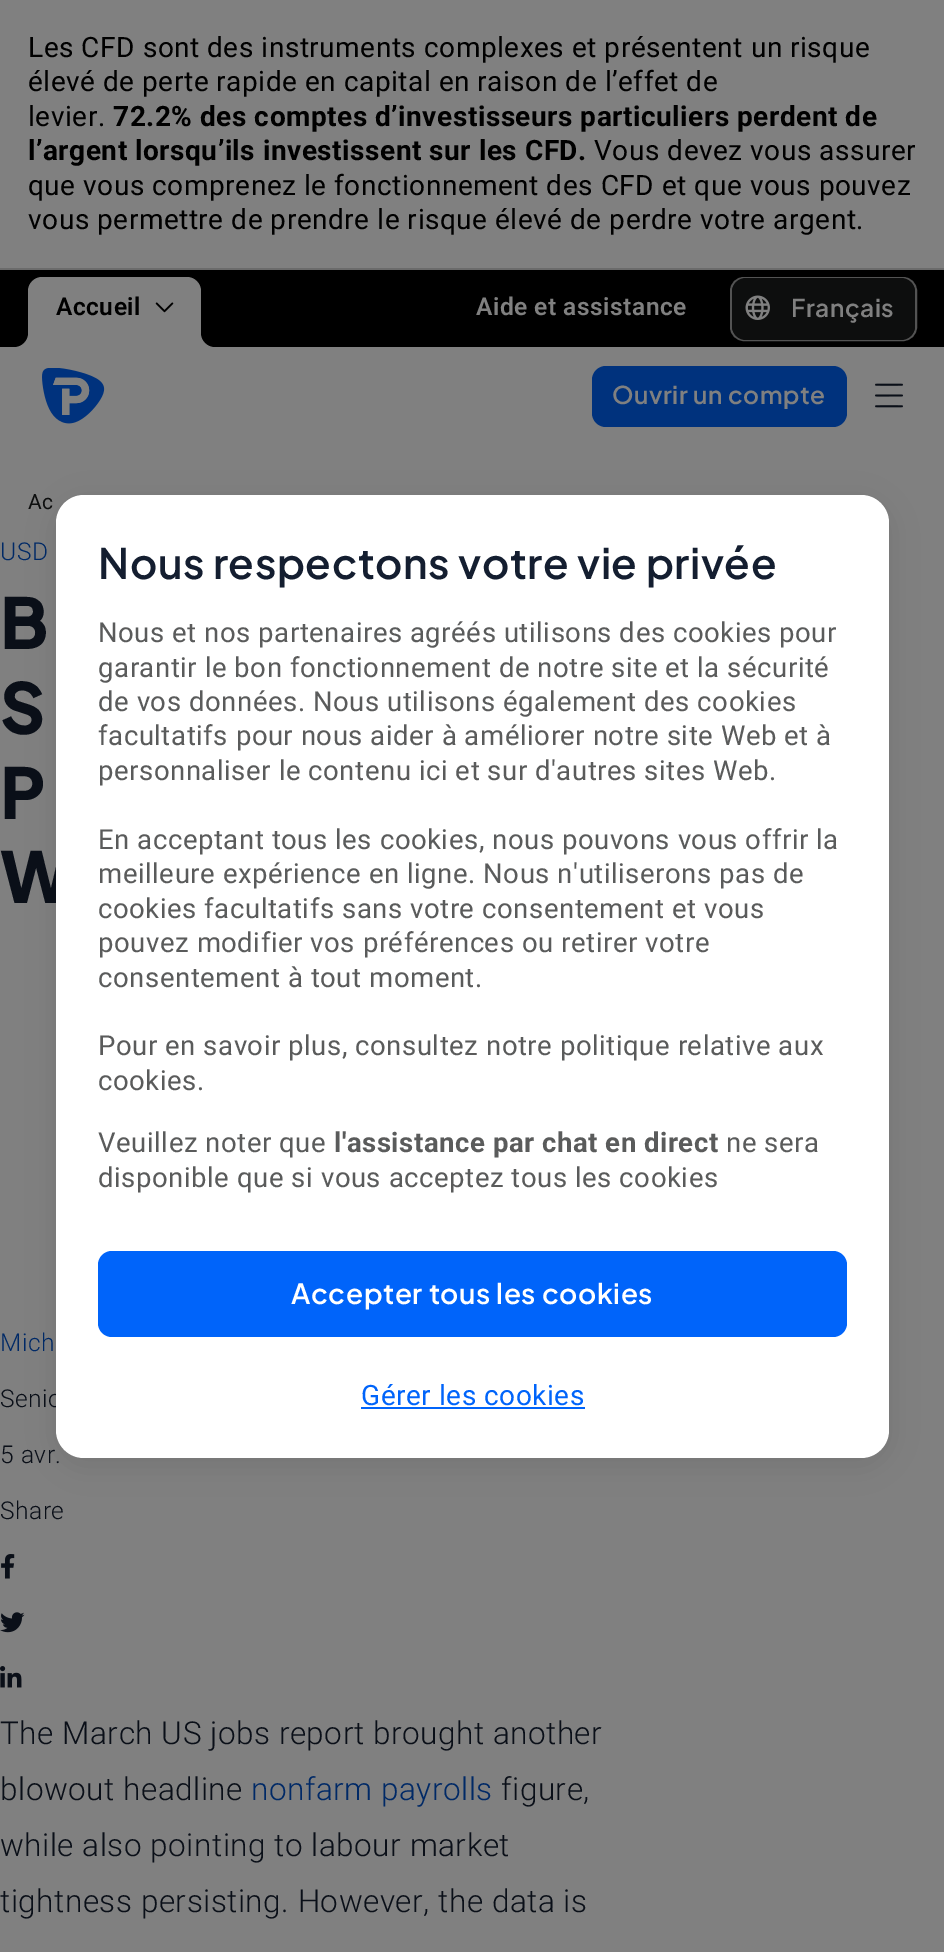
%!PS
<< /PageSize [944 1952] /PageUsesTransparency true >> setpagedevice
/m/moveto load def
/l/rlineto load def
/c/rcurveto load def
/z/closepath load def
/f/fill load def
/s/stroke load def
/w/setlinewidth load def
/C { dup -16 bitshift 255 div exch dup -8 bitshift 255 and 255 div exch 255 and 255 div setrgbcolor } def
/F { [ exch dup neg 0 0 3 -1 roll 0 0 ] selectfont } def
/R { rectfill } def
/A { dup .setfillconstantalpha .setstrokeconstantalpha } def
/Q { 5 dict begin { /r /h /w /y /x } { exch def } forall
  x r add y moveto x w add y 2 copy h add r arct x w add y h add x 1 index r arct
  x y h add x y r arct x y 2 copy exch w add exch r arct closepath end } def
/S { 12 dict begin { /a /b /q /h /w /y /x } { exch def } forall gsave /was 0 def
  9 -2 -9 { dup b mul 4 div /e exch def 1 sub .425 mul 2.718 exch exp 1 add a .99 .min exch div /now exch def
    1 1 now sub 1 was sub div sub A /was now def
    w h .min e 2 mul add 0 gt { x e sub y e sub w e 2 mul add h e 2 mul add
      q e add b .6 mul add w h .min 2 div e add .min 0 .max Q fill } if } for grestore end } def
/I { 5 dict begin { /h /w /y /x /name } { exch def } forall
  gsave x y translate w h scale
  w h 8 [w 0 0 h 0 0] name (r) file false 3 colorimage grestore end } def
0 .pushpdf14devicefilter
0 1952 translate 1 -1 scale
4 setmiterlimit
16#808080 C
0 0 944 1952 R
16#6B6B6B C
0 268 944 2 R
/Roboto-Regular 28 F
16#000000 C
28 57 m .53 0 (Les CFD sont des instruments complexes et présentent un risque) ashow
28 91 m .53 0 (élevé de perte rapide en capital en raison de l’effet de) ashow
28 126 m .53 0 (levier.) ashow
/Roboto-Bold 28 F
113 126 m .53 0 (72.2% des comptes d’investisseurs particuliers perdent de) ashow
28 160 m .53 0 (l’argent lorsqu’ils investissent sur les CFD.) ashow
/Roboto-Regular 28 F
594 160 m .53 0 (Vous devez vous assurer) ashow
28 195 m .53 0 (que vous comprenez le fonctionnement des CFD et que vous pouvez) ashow
28 229 m .53 0 (vous permettre de prendre le risque élevé de perdre votre argent.) ashow
0 270 944 77 R
16#808080 C
42 277 m 145 0 l 7.5 0 14 6.5 14 14 c 0 56 l -173 0 l 0 -56 l 0 -7.5 6.5 -14 14 -14 c z f
/Roboto-SemiBold 24.5 F
16#000000 C
56 315 m .53 0 (Accueil) ashow
(1.rgb) 155 302 19 11 I
16#808080 C
14 333 14 14 R
16#000000 C
14 319 m 7.5 0 14 6.5 14 14 c 0 7.5 -6.5 14 -14 14 c z f
16#808080 C
201 333 14 14 R
16#000000 C
215 319 m 0 28 l -7.5 0 -14 -6.5 -14 -14 c 0 -7.5 6.5 -14 14 -14 c z f
16#808080 C
476 315 m .53 0 (Aide et assistance) ashow
16#535353 C
2 w
731 278 185 62 13 Q s
16#0D0E0E C
732 278 183 62 14 Q f
(2.rgb) 745 295 25 25 I
/PlusJakartaSans-SemiBold 24.5 F
16#808080 C
791 317 m .53 0 (Français) ashow
(3.rgb) 42 368 63 56 I
16#00327D C
592 366 255 61 14 Q f
16#808080 C
612 404 m .53 0 (Ouvrir un compte) ashow
(4.rgb) 875 383 28 25 I
/Roboto-Regular 21 F
16#0D0E0E C
28 509 m .53 0 (Ac) ashow
/Roboto-Light 24.5 F
16#002966 C
0 560 m .53 0 (USD) ashow
/PlusJakartaSans-ExtraBold 70 F
16#0A0F18 C
0 649 m .53 0 (B) ashow
0 734 m .53 0 (S) ashow
0 819 m .53 0 (P) ashow
0 903 m .53 0 (W) ashow
/Roboto-Light 24.5 F
16#002966 C
0 1351 m .53 0 (Mich) ashow
16#0A0F18 C
0 1407 m .53 0 (Senio) ashow
0 1463 m .53 0 (5 avr.) ashow
0 1519 m .53 0 (Share) ashow
(5.rgb) 1 1554 14 25 I
(6.rgb) 0 1612 25 21 I
(7.rgb) 0 1666 22 22 I
/Roboto-Light 31.5 F
0 1744 m .53 0 (The March US jobs report brought another) ashow
0 1800 m .53 0 (blowout headline) ashow
16#002966 C
251 1800 m .53 0 (nonfarm payrolls) ashow
16#0A0F18 C
501 1800 m .53 0 (figure,) ashow
0 1856 m .53 0 (while also pointing to labour market) ashow
0 1912 m .53 0 (tightness persisting. However, the data is) ashow
16#000000 C
56 502 833 963 28 14 .1 S
16#FFFFFF C
56 495 833 963 28 Q f
/PlusJakartaSans-SemiBold 42 F
16#141E30 C
98 579 m .53 0 (Nous respectons votre vie privée) ashow
/Roboto-Regular 27.55 F
16#5A5B5B C
98 642 m .53 0 (Nous et nos partenaires agréés utilisons des cookies pour) ashow
98 677 m .53 0 (garantir le bon fonctionnement de notre site et la sécurité) ashow
98 711 m .53 0 (de vos données. Nous utilisons également des cookies) ashow
98 745 m .53 0 (facultatifs pour nous aider à améliorer notre site Web et à) ashow
98 780 m .53 0 (personnaliser le contenu ici et sur d'autres sites Web.) ashow
98 849 m .53 0 (En acceptant tous les cookies, nous pouvons vous offrir la) ashow
98 883 m .53 0 (meilleure expérience en ligne. Nous n'utiliserons pas de) ashow
98 918 m .53 0 (cookies facultatifs sans votre consentement et vous) ashow
98 952 m .53 0 (pouvez modifier vos préférences ou retirer votre) ashow
98 987 m .53 0 (consentement à tout moment.) ashow
98 1055 m .53 0 (Pour en savoir plus, consultez notre politique relative aux) ashow
98 1090 m .53 0 (cookies.) ashow
98 1152 m .53 0 (Veuillez noter que) ashow
/Roboto-Bold 27.55 F
334 1152 m .53 0 (l'assistance par chat en direct) ashow
/Roboto-Regular 27.55 F
726 1152 m .53 0 (ne sera) ashow
98 1187 m .53 0 (disponible que si vous acceptez tous les cookies) ashow
16#0064FA C
98 1251 749 86 14 Q f
/PlusJakartaSans-SemiBold 28 F
16#FFFFFF C
291 1304 m .53 0 (Accepter tous les cookies) ashow
/Roboto-Regular 28 F
16#0064FA C
361 1405 m .53 0 (Gérer les cookies) ashow
361 1407 224 2 R
.poppdf14devicefilter showpage
